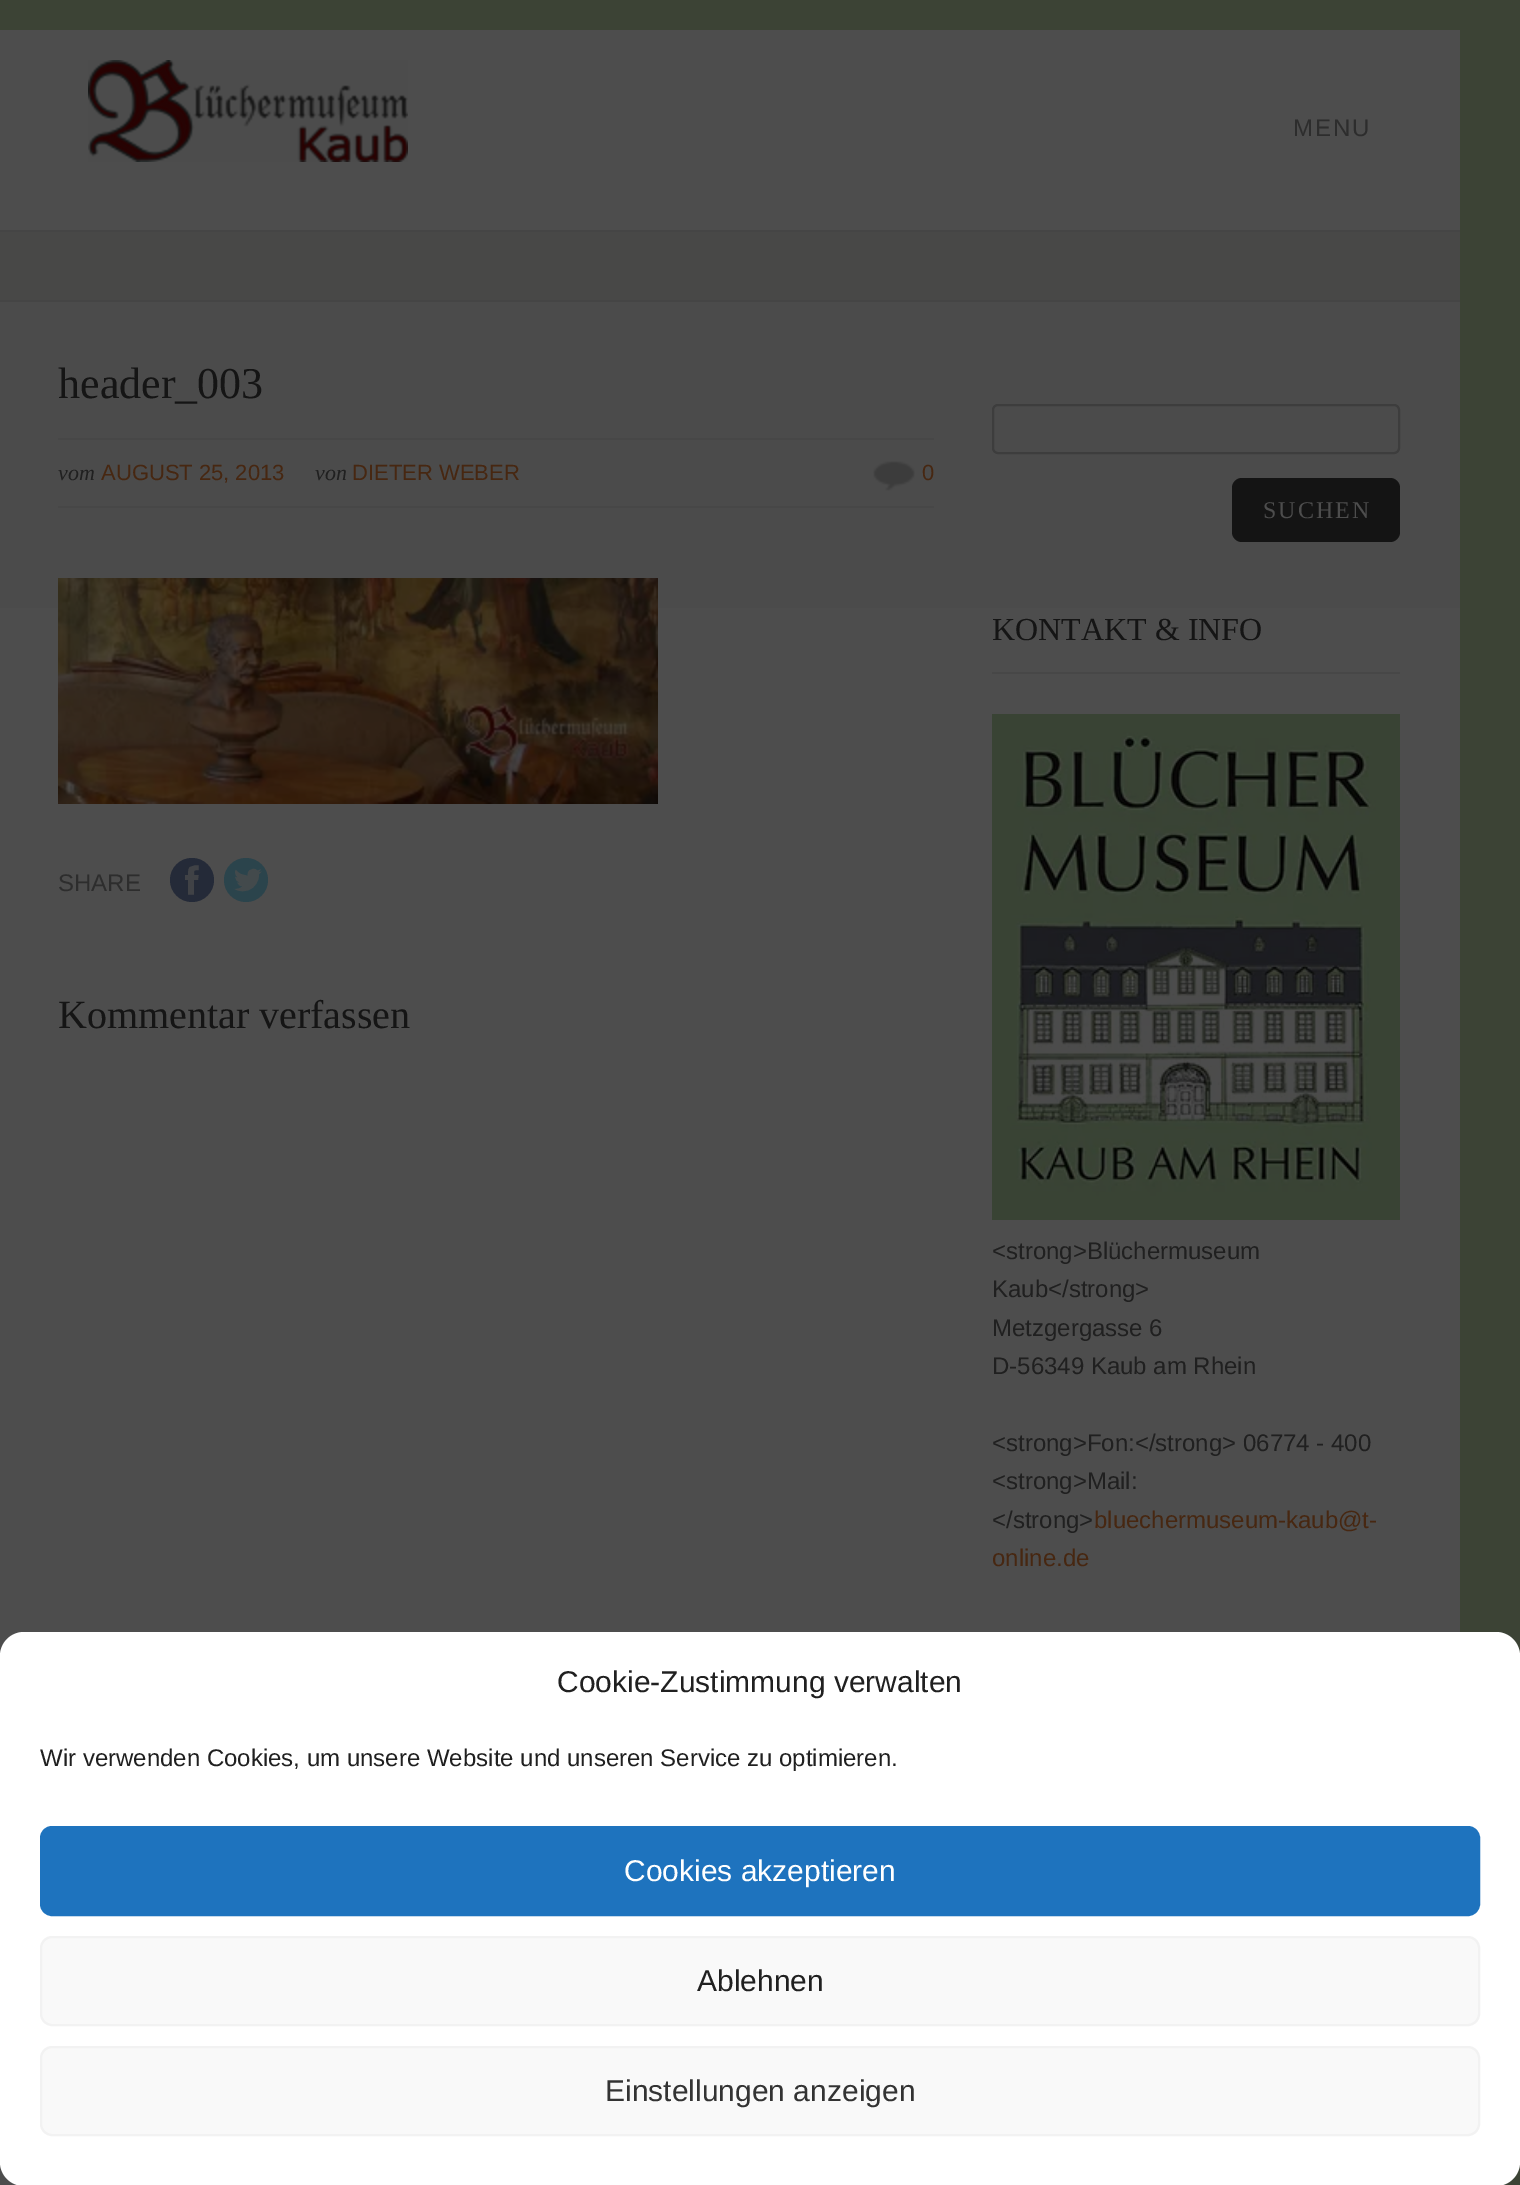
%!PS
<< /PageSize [1520 2185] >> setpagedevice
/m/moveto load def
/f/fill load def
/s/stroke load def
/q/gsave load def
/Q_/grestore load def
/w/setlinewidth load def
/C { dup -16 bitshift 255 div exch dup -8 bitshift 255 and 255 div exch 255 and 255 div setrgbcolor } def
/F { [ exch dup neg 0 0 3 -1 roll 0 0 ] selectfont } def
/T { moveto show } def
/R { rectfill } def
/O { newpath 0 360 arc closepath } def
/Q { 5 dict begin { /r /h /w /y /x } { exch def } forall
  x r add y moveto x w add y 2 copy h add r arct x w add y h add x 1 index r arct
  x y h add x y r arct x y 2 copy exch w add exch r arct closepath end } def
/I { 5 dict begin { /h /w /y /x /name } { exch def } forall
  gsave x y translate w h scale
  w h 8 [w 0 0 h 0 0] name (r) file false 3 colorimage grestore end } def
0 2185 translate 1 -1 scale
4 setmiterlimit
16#3C4335 C
0 0 1520 2185 R
16#4D4D4D C
0 30 1460 2155 R
(1.rgb) 88 60 320 102 I
/LiberationSans-Regular 24 F
16#2D2D2D C
1293 136 m 2 0 (MENU) ashow
16#484847 C
0 232 1460 68 R
16#454545 C
0 230 1460 2 R
0 300 1460 2 R
(2.rgb) 0 302 1460 306 I
/LiberationSerif-Regular 44 F
16#151515 C
(header_003) 58 398 T
16#474747 C
58 438 876 2 R
58 506 876 2 R
/LiberationSerif-Italic 22 F
16#202020 C
(vom) 58 480 T
/LiberationSans-Regular 22 F
16#472711 C
(AUGUST 25, 2013) 101 480 T
/LiberationSerif-Italic 22 F
16#202020 C
(von) 315 480 T
/LiberationSans-Regular 22 F
16#472711 C
(DIETER WEBER) 352 480 T
(3.rgb) 873 461 42 30 I
(0) 922 480 T
(4.rgb) 58 578 600 226 I
/LiberationSans-Regular 24 F
16#2D2D2D C
(SHARE) 58 891 T
16#242A38 C
192 880 22 O f
(5.rgb) 185 865 14 30 I
16#2B444C C
246 880 22 O f
(6.rgb) 233 868 29 24 I
/LiberationSerif-Regular 40 F
16#151515 C
(Kommentar verfassen) 58 1028 T
16#3D3D3D C
2 w
993 405 406 48 5 Q s
16#141414 C
1232 478 168 64 10 Q f
/LiberationSerif-Regular 24 F
16#4D4D4D C
1263 518 m 2 0 (SUCHEN) ashow
16#474747 C
992 672 408 2 R
/LiberationSerif-Regular 32 F
16#151515 C
(KONTAKT & INFO) 992 640 T
(7.rgb) 992 714 408 506 I
/LiberationSans-Regular 24 F
16#202020 C
(<strong>Blüchermuseum) 992 1259 T
(Kaub</strong>) 992 1297 T
(Metzgergasse 6) 992 1336 T
(D-56349 Kaub am Rhein) 992 1374 T
(<strong>Fon:</strong> 06774 - 400) 992 1451 T
(<strong>Mail:) 992 1489 T
(</strong>) 992 1528 T
16#472711 C
(bluechermuseum-kaub@t-) 1094 1528 T
(online.de) 992 1566 T
16#FFFFFF C
0 1632 1520 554 24 Q f
/LiberationSans-Regular 30 F
16#202020 C
(Cookie-Zustimmung verwalten) 557 1692 T
/LiberationSans-Regular 24 F
(Wir verwenden Cookies, um unsere Website und unseren Service zu optimieren.) 40 1766 T
16#1E73BE C
41 1827 1438 88 11 Q q f Q_
s
/LiberationSans-Regular 30 F
16#FFFFFF C
(Cookies akzeptieren) 624 1881 T
16#F9F9F9 C
41 1937 1438 88 11 Q q f Q_
16#F2F2F2 C
s
16#202020 C
(Ablehnen) 697 1991 T
16#F9F9F9 C
41 2047 1438 88 11 Q q f Q_
16#F2F2F2 C
s
16#333333 C
(Einstellungen anzeigen) 605 2101 T
showpage
